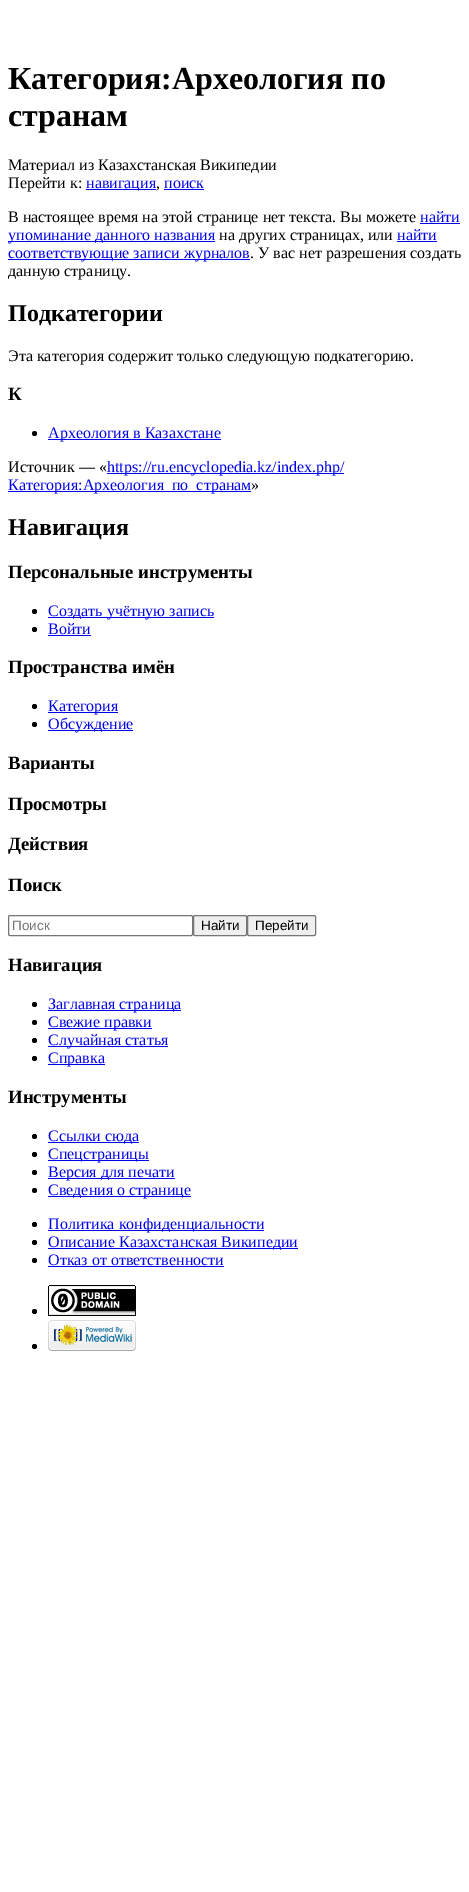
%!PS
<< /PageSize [469 1892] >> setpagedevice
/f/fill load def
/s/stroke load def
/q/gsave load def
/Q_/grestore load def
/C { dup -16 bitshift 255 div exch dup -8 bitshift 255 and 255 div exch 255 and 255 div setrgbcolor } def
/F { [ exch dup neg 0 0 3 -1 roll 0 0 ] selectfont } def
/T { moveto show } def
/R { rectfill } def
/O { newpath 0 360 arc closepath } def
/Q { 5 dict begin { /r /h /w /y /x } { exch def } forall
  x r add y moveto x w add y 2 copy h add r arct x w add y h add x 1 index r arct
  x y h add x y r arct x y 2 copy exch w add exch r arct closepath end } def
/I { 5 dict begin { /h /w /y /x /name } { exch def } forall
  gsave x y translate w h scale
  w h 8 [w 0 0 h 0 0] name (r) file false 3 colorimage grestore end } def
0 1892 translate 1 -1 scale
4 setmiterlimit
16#FFFFFF C
0 0 469 1892 R
/LiberationSerif-Bold 32 F
16#000000 C
(Категория:Археология по) 8 89 T
(странам) 8 126 T
/LiberationSerif-Regular 16 F
(Материал из Казахстанская Википедии) 8 170 T
(Перейти к:) 8 188 T
16#0000EE C
86 189 70 1 R
(навигация) 86 188 T
16#000000 C
(,) 156 188 T
16#0000EE C
(поиск) 164 188 T
164 189 40 1 R
16#000000 C
(В настоящее время на этой странице нет текста. Вы можете) 8 222 T
16#0000EE C
(найти) 420 222 T
420 223 40 1 R
8 241 207 1 R
(упоминание данного названия) 8 240 T
16#000000 C
(на других страницах, или) 219 240 T
16#0000EE C
(найти) 397 240 T
397 241 40 1 R
8 259 242 1 R
(соответствующие записи журналов) 8 258 T
16#000000 C
(. У вас нет разрешения создать) 250 258 T
(данную страницу.) 8 276 T
/LiberationSerif-Bold 24 F
(Подкатегории) 8 321 T
/LiberationSerif-Regular 16 F
(Эта категория содержит только следующую подкатегорию.) 8 361 T
/LiberationSerif-Bold 18.75 F
(К) 8 400 T
34.5 433.5 2.5 O f
16#0000EE C
48 439 173 1 R
/LiberationSerif-Regular 16 F
(Археология в Казахстане) 48 438 T
16#000000 C
(Источник — «) 8 472 T
16#0000EE C
107 473 237 1 R
(https://ru.encyclopedia.kz/index.php/) 107 472 T
8 491 243 1 R
(Категория:Археология_по_странам) 8 490 T
16#000000 C
(») 251 490 T
/LiberationSerif-Bold 24 F
(Навигация) 8 535 T
/LiberationSerif-Bold 18.75 F
(Персональные инструменты) 8 578 T
34.5 611.5 2.5 O f
16#0000EE C
48 617 166 1 R
/LiberationSerif-Regular 16 F
(Создать учётную запись) 48 616 T
16#000000 C
34.5 629.5 2.5 O f
16#0000EE C
(Войти) 48 634 T
48 635 43 1 R
/LiberationSerif-Bold 18.75 F
16#000000 C
(Пространства имён) 8 673 T
34.5 706.5 2.5 O f
16#0000EE C
48 712 70 1 R
/LiberationSerif-Regular 16 F
(Категория) 48 711 T
16#000000 C
34.5 724.5 2.5 O f
16#0000EE C
48 730 85 1 R
(Обсуждение) 48 729 T
/LiberationSerif-Bold 18.75 F
16#000000 C
(Варианты) 8 769 T
(Просмотры) 8 810 T
(Действия) 8 850 T
(Поиск) 8 891 T
16#767676 C
8.5 915.5 184 20 1.5 Q s
/LiberationSans-Regular 13.5 F
16#757575 C
(Поиск) 12 930 T
16#EFEFEF C
193.5 915.5 53 20 1.5 Q q f Q_
16#767676 C
s
16#000000 C
(Найти) 201 930 T
16#EFEFEF C
247.5 915.5 68 20 1.5 Q q f Q_
16#767676 C
s
16#000000 C
(Перейти) 255 930 T
/LiberationSerif-Bold 18.75 F
(Навигация) 8 971 T
34.5 1004.5 2.5 O f
16#0000EE C
48 1010 133 1 R
/LiberationSerif-Regular 16 F
(Заглавная страница) 48 1009 T
16#000000 C
34.5 1022.5 2.5 O f
16#0000EE C
48 1028 104 1 R
(Свежие правки) 48 1027 T
16#000000 C
34.5 1040.5 2.5 O f
16#0000EE C
48 1046 120 1 R
(Случайная статья) 48 1045 T
16#000000 C
34.5 1058.5 2.5 O f
16#0000EE C
48 1064 57 1 R
(Справка) 48 1063 T
/LiberationSerif-Bold 18.75 F
16#000000 C
(Инструменты) 8 1103 T
34.5 1136.5 2.5 O f
16#0000EE C
48 1142 91 1 R
/LiberationSerif-Regular 16 F
(Ссылки сюда) 48 1141 T
16#000000 C
34.5 1154.5 2.5 O f
16#0000EE C
48 1160 101 1 R
(Спецстраницы) 48 1159 T
16#000000 C
34.5 1172.5 2.5 O f
16#0000EE C
48 1178 127 1 R
(Версия для печати) 48 1177 T
16#000000 C
34.5 1190.5 2.5 O f
16#0000EE C
48 1196 143 1 R
(Сведения о странице) 48 1195 T
16#000000 C
34.5 1224.5 2.5 O f
16#0000EE C
48 1230 216 1 R
(Политика конфиденциальности) 48 1229 T
16#000000 C
34.5 1242.5 2.5 O f
16#0000EE C
48 1248 250 1 R
(Описание Казахстанская Википедии) 48 1247 T
16#000000 C
34.5 1260.5 2.5 O f
16#0000EE C
(Отказ от ответственности) 48 1265 T
48 1266 176 1 R
16#000000 C
34.5 1311.5 2.5 O f
(1.rgb) 48 1285 88 31 I
34.5 1346.5 2.5 O f
(2.rgb) 48 1320 88 31 I
showpage
